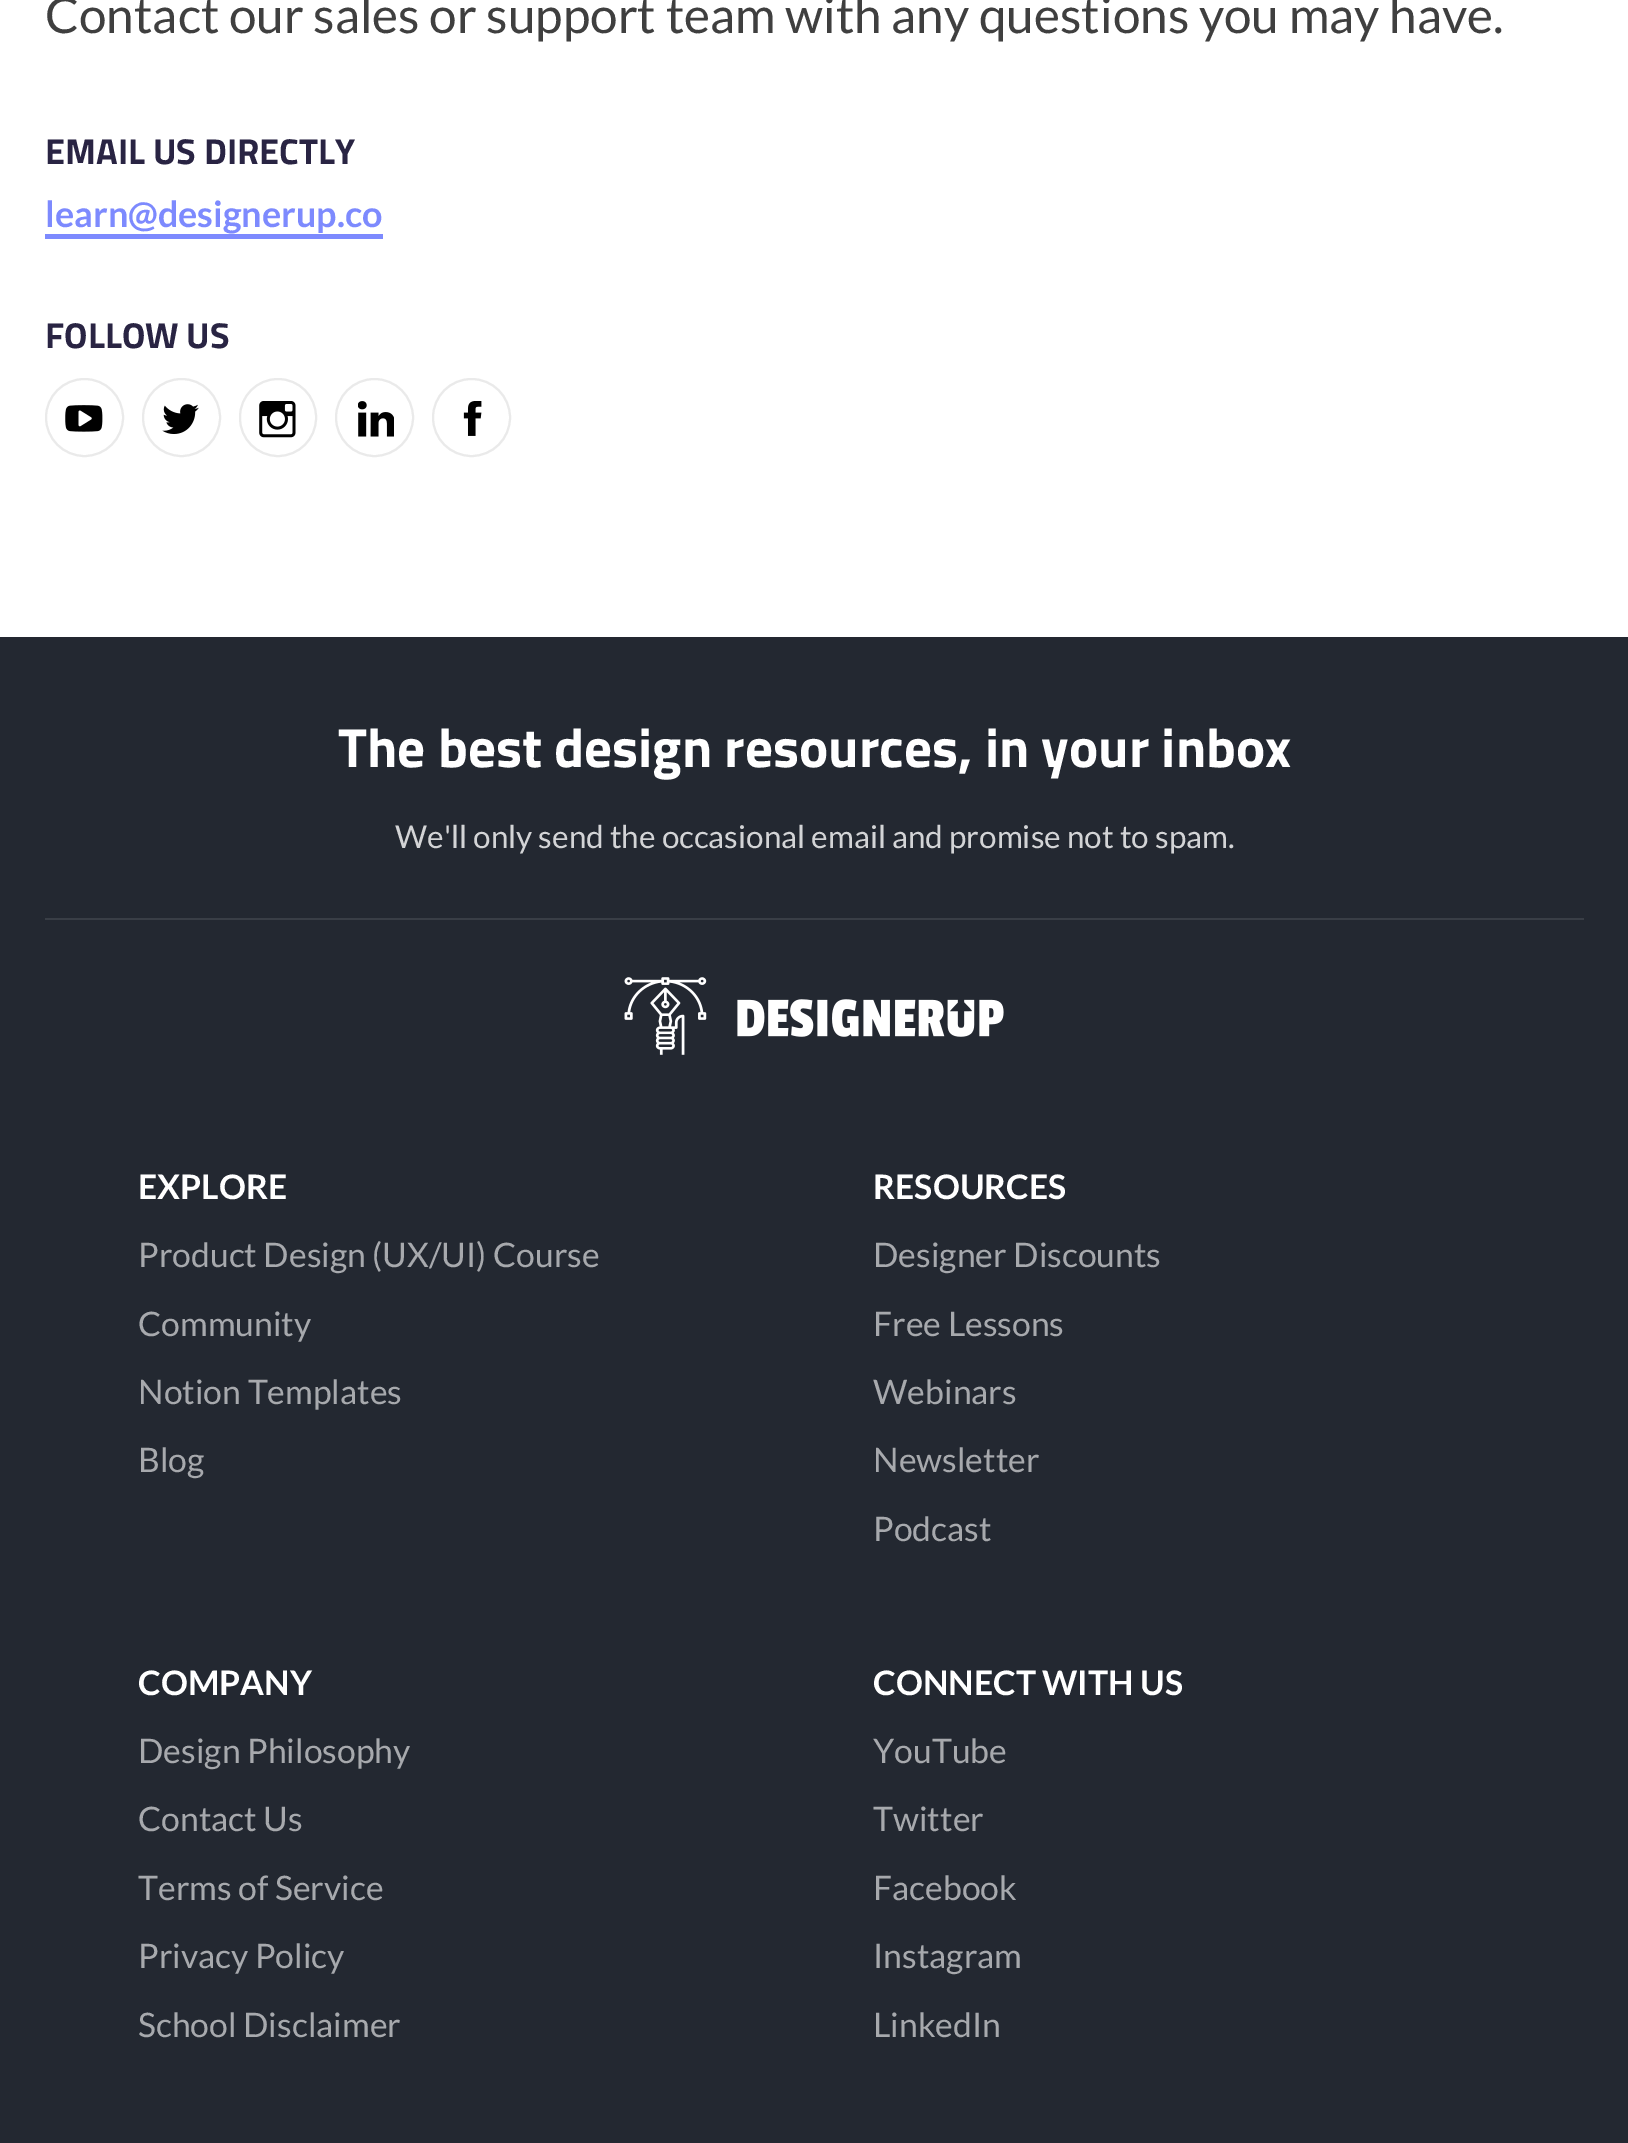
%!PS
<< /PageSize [1628 2143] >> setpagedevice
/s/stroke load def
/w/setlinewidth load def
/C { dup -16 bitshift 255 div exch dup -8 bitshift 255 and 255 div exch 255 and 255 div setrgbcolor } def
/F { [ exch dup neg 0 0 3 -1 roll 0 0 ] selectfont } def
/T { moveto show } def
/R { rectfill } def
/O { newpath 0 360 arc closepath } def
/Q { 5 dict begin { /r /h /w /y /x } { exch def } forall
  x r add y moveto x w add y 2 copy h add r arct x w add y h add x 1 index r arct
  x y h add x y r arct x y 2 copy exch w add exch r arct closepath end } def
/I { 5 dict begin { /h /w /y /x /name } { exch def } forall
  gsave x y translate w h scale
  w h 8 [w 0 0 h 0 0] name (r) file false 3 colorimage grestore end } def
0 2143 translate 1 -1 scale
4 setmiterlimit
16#FFFFFF C
0 0 1628 2143 R
/Lato-Regular 49.5 F
16#3F3F3F C
(Contact our sales or support team with any questions you may have.) 45 33 T
/TitilliumWeb-Bold 36 F
16#292443 C
(EMAIL US DIRECTLY) 45 164 T
/Lato-Bold 36 F
16#7D8AFE C
(learn@designerup.co) 45 227 T
45 234 338 5 R
/TitilliumWeb-Bold 36 F
16#292443 C
(FOLLOW US) 45 348 T
16#EAEAEA C
2 w
84.5 417.5 38.5 O s
(1.rgb) 65 405 38 27 I
181.5 417.5 38.5 O s
(2.rgb) 162 404 37 30 I
240 379 76 77 38 Q s
(3.rgb) 259 401 37 37 I
374.5 417.5 38.5 O s
(4.rgb) 358 401 36 36 I
471.5 417.5 38.5 O s
(5.rgb) 463 401 19 35 I
16#232831 C
0 637 1628 1506 R
/TitilliumWeb-Bold 55.1 F
16#FFFFFF C
(The best design resources, in your inbox) 338 767 T
/Lato-Regular 31.5 F
16#D3D4D6 C
(We'll only send the occasional email and promise not to spam.) 395 848 T
16#393E46 C
45 918 1539 2 R
(6.rgb) 624 977 380 78 I
/Lato-Bold 33.75 F
16#FFFFFF C
(EXPLORE) 138 1199 T
/Lato-Regular 33.75 F
16#A7A9AD C
(Product Design \(UX/UI\) Course) 138 1267 T
(Community) 138 1336 T
(Notion Templates) 138 1404 T
(Blog) 138 1472 T
/Lato-Bold 33.75 F
16#FFFFFF C
(RESOURCES) 873 1199 T
/Lato-Regular 33.75 F
16#A7A9AD C
(Designer Discounts) 873 1267 T
(Free Lessons) 873 1336 T
(Webinars) 873 1404 T
(Newsletter) 873 1472 T
(Podcast) 873 1541 T
/Lato-Bold 33.75 F
16#FFFFFF C
(COMPANY) 138 1695 T
/Lato-Regular 33.75 F
16#A7A9AD C
(Design Philosophy) 138 1763 T
(Contact Us) 138 1831 T
(Terms of Service) 138 1900 T
(Privacy Policy) 138 1968 T
(School Disclaimer) 138 2037 T
/Lato-Bold 33.75 F
16#FFFFFF C
(CONNECT WITH US) 873 1695 T
/Lato-Regular 33.75 F
16#A7A9AD C
(YouTube) 873 1763 T
(Twitter) 873 1831 T
(Facebook) 873 1900 T
(Instagram) 873 1968 T
(LinkedIn) 873 2037 T
showpage
